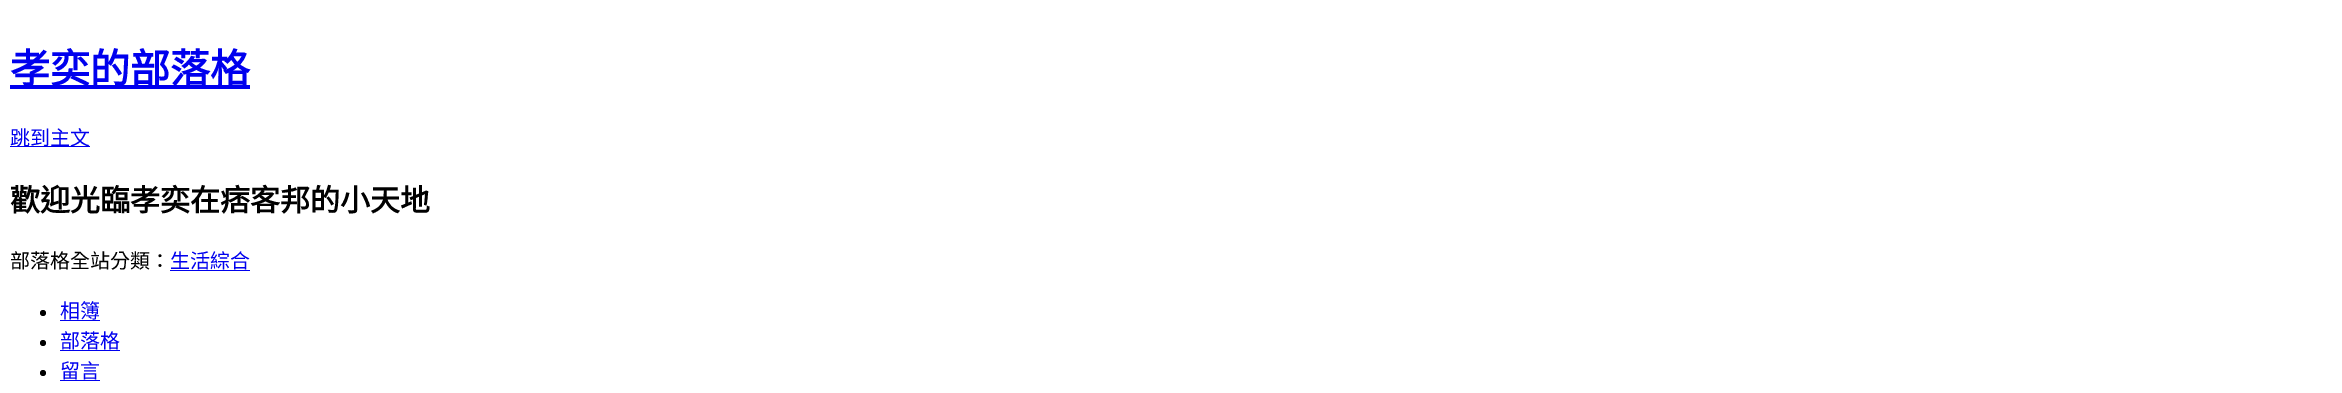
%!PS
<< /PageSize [2342 393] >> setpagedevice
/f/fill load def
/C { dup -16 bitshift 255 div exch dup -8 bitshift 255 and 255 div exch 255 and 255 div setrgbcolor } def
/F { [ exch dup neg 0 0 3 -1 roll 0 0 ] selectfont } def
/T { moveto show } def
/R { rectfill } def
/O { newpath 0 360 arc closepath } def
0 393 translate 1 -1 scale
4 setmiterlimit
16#FFFFFF C
0 0 2342 393 R
16#0000EE C
10 85 240 4 R
/NotoSansCJKTC-Bold 40 F
(孝奕的部落格) 10 83 T
10 146 80 1 R
/NotoSansCJKTC-Regular 20 F
(跳到主文) 10 145 T
/NotoSansCJKTC-Bold 30 F
16#000000 C
(歡迎光臨孝奕在痞客邦的小天地) 10 211 T
/NotoSansCJKTC-Regular 20 F
(部落格全站分類：) 10 268 T
16#0000EE C
(生活綜合) 170 268 T
170 270 80 1 R
16#000000 C
43 313 3 O f
16#0000EE C
(相簿) 60 318 T
60 320 40 1 R
16#000000 C
43 343 3 O f
16#0000EE C
(部落格) 60 348 T
60 350 60 1 R
16#000000 C
43 373 3 O f
16#0000EE C
(留言) 60 378 T
60 380 40 1 R
showpage
